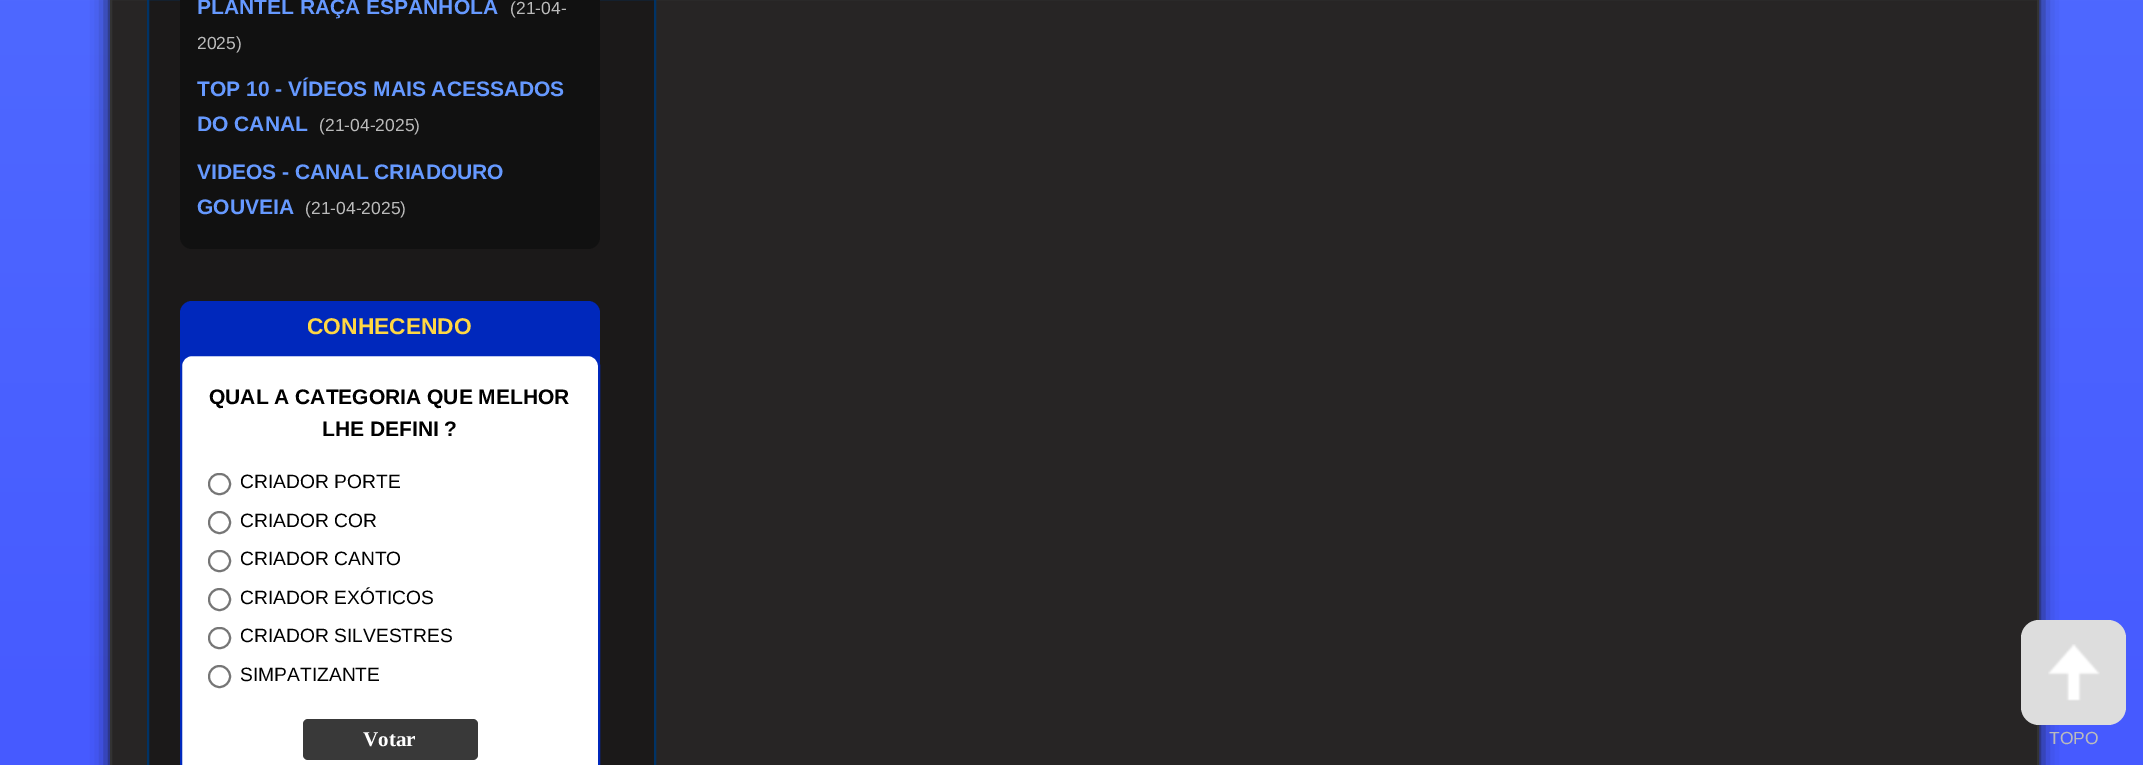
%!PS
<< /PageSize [2143 765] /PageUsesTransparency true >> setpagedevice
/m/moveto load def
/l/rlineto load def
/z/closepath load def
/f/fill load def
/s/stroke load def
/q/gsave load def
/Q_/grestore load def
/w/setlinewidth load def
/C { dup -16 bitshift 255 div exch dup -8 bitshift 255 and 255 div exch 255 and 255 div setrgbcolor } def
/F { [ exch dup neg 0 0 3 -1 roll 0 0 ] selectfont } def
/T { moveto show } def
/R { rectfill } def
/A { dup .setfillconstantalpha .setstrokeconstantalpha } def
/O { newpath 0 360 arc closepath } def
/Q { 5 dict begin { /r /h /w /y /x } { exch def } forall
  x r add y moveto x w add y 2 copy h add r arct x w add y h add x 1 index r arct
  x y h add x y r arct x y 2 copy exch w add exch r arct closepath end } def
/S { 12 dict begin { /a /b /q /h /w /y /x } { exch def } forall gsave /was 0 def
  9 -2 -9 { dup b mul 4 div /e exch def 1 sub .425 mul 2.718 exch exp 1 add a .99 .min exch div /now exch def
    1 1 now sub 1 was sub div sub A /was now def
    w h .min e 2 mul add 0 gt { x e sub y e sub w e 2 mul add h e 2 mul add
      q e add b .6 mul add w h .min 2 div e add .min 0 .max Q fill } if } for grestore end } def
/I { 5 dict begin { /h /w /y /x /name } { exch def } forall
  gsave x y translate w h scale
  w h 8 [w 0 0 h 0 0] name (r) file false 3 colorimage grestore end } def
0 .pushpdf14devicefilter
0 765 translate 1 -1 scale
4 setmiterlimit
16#FFFFFF C
0 0 2143 765 R
q 0 0 m 2143 0 l 0 765 l -2143 0 l z clip newpath
<< /ShadingType 2 /ColorSpace /DeviceRGB /Coords [0 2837 0 -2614] /Extend [true true] /Function << /FunctionType 2 /Domain [0 1] /C0 [.2 .2 1] /C1 [.4 .6 1] /N 1 >> >> shfill Q_
16#111111 C
110 -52 1929 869 25 9 1 S
16#272525 C
111 -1 m 1927 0 l 0 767 l -1927 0 l z q f Q_
16#333333 C
2 w
s
16#1B1919 C
148 -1 m 507 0 l 0 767 l -507 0 l z q f Q_
16#003366 C
s
16#111111 C
180 -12 420 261 12 Q f
/LiberationSans-Bold 21 F
16#6699FF C
(PLANTEL RAÇA ESPANHOLA) 197 14 T
/LiberationSans-Regular 17.5 F
16#BBBBBB C
(\(21-04-) 510 14 T
(2025\)) 197 49 T
/LiberationSans-Bold 21 F
16#6699FF C
(TOP 10 - VÍDEOS MAIS ACESSADOS) 197 96 T
(DO CANAL) 197 131 T
/LiberationSans-Regular 17.5 F
16#BBBBBB C
(\(21-04-2025\)) 319 131 T
/LiberationSans-Bold 21 F
16#6699FF C
(VIDEOS - CANAL CRIADOURO) 197 179 T
(GOUVEIA) 197 214 T
/LiberationSans-Regular 17.5 F
16#BBBBBB C
(\(21-04-2025\)) 305 214 T
16#0028BC C
180 301 420 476 12 Q f
/LiberationSans-Bold 22.75 F
16#FFD743 C
(CONHECENDO) 307 334 T
16#FFFFFF C
181 355 418 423 11 Q q f Q_
16#0028BC C
s
/LiberationSans-Bold 21 F
16#000000 C
(QUAL A CATEGORIA QUE MELHOR) 209 404 T
(LHE DEFINI ?) 322 436 T
16#767676 C
209 474 21 20 10 Q s
/LiberationSans-Regular 19.25 F
16#000000 C
(CRIADOR PORTE) 240 488 T
16#767676 C
219.5 522.5 10.5 O s
16#000000 C
(CRIADOR COR) 240 527 T
16#767676 C
209 551 21 20 10 Q s
16#000000 C
(CRIADOR CANTO) 240 565 T
16#767676 C
219.5 599.5 10.5 O s
16#000000 C
(CRIADOR EXÓTICOS) 240 604 T
16#767676 C
209 628 21 20 10 Q s
16#000000 C
(CRIADOR SILVESTRES) 240 642 T
16#767676 C
219.5 676.5 10.5 O s
16#000000 C
(SIMPATIZANTE) 240 681 T
16#393939 C
303 719 175 41 5 Q f
/LiberationSerif-Bold 21 F
16#FFFFFF C
(Votar) 363 746 T
16#DDDDDD C
2021 620 105 105 18 Q f
(1.rgb) 2048 644 52 57 I
/LiberationSans-Regular 17.5 F
16#BBBBBB C
(TOPO) 2049 744 T
.poppdf14devicefilter showpage
